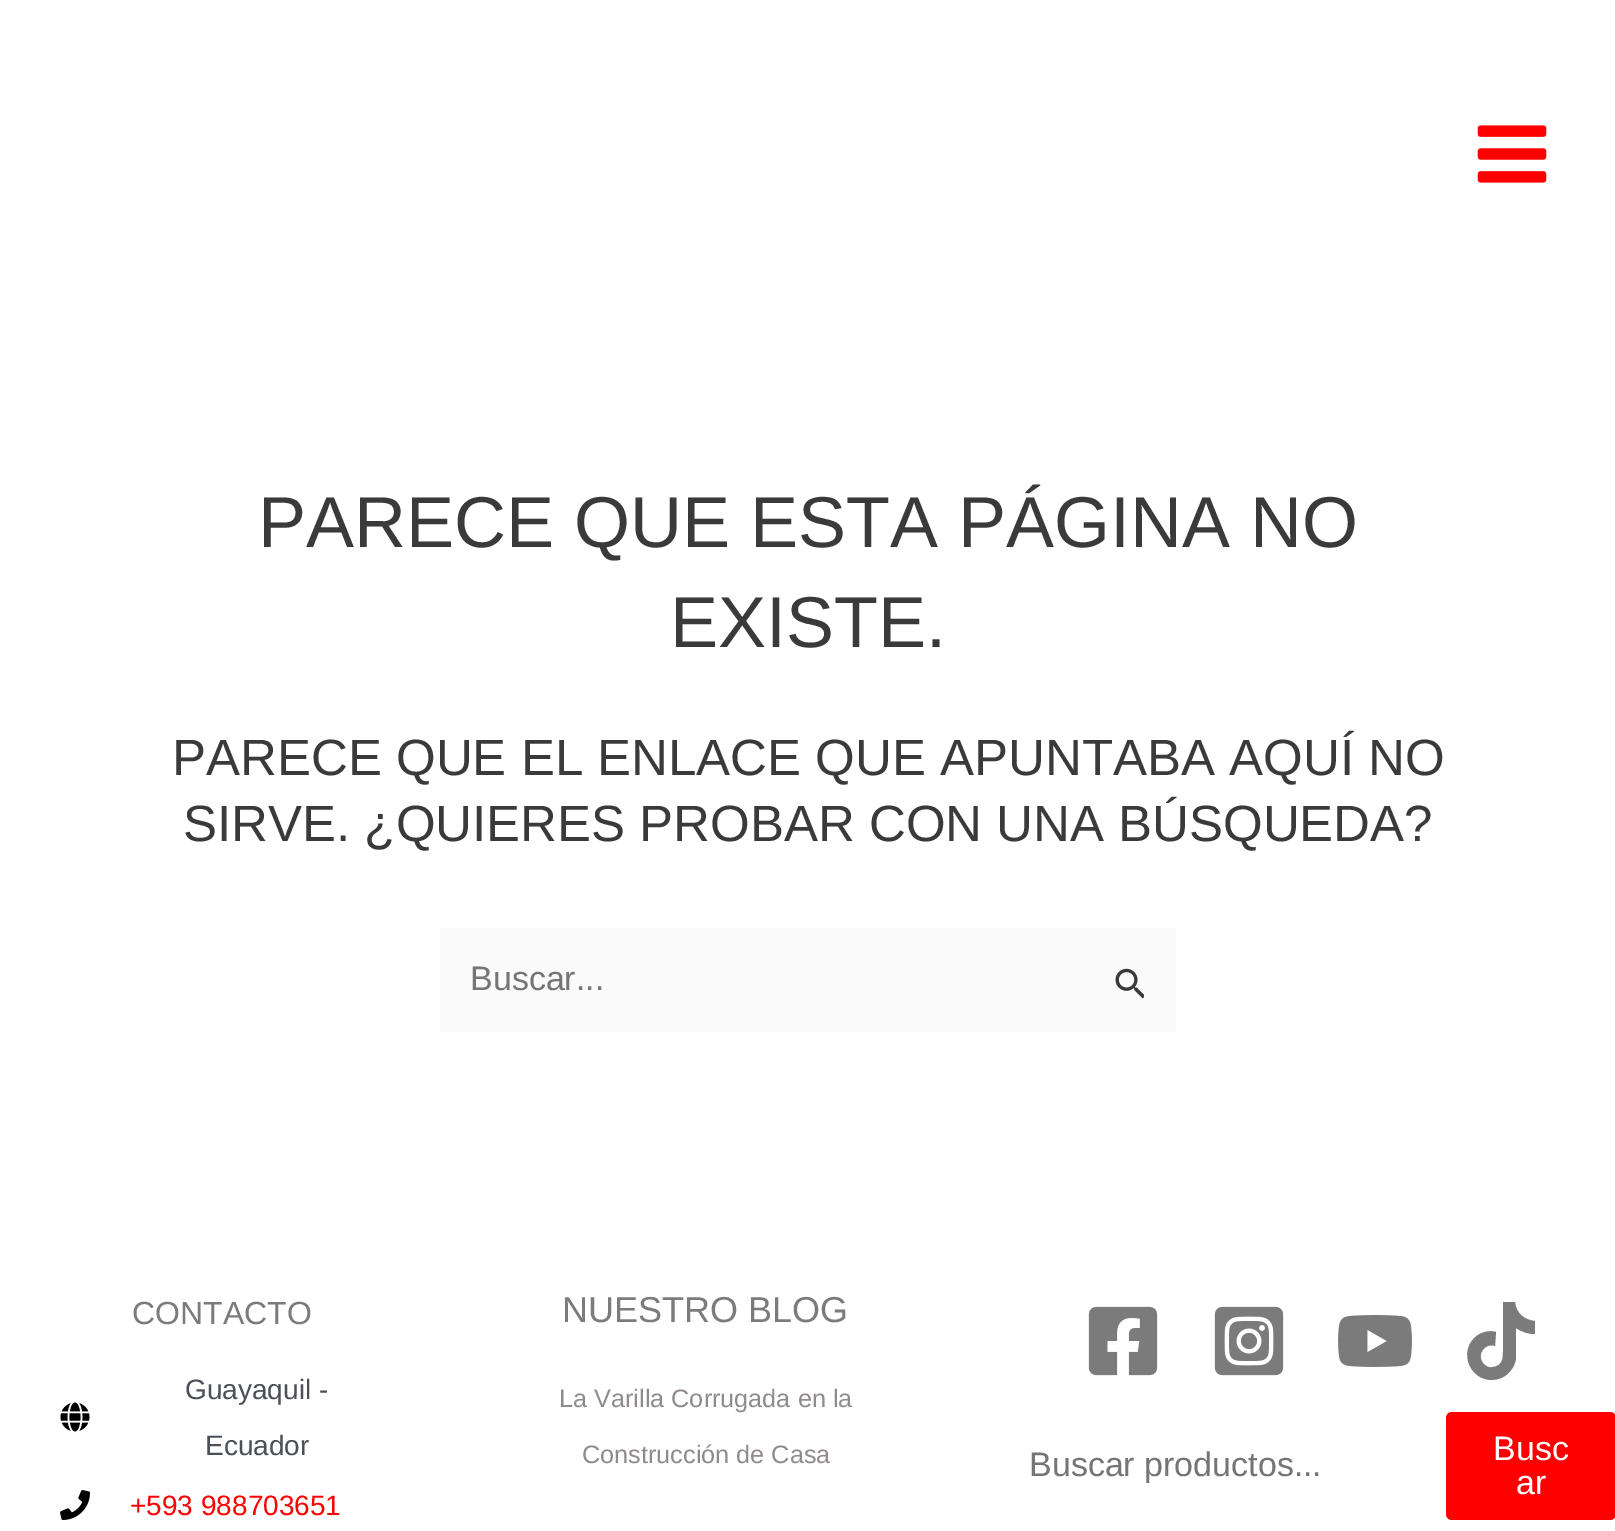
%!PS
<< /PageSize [1615 1531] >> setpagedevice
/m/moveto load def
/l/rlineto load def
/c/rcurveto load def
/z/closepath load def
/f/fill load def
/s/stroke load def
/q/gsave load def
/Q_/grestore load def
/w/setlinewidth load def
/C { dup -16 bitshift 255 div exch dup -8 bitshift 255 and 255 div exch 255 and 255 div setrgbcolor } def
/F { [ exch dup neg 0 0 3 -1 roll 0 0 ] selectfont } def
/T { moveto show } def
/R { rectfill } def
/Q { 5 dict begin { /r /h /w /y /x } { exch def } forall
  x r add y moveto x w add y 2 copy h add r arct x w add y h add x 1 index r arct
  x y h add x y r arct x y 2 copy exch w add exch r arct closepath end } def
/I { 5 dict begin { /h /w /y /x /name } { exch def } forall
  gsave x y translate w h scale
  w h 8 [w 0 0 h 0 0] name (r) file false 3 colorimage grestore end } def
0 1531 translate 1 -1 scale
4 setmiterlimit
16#FFFFFF C
0 0 1615 1531 R
(1.rgb) 1477 125 70 58 I
/LiberationSans-Regular 72 F
16#3A3A3A C
(PARECE QUE ESTA PÁGINA NO) 258 547 T
(EXISTE.) 670 647 T
/LiberationSans-Regular 51 F
(PARECE QUE EL ENLACE QUE APUNTABA AQUÍ NO) 172 775 T
(SIRVE. ¿QUIERES PROBAR CON UNA BÚSQUEDA?) 183 841 T
16#FAFAFA C
439 927 738 106 3 Q q f Q_
16#FFFFFF C
2 w
s
/LiberationSans-Regular 34 F
16#757575 C
(Buscar...) 470 990 T
(2.rgb) 1115 968 29 31 I
/LiberationSans-Regular 32 F
16#7C7B7B C
(CONTACTO) 132 1324 T
(3.rgb) 60 1402 30 30 I
/LiberationSans-Regular 28 F
16#4B4F58 C
(Guayaquil -) 185 1399 T
(Ecuador) 205 1455 T
(4.rgb) 60 1490 30 30 I
16#FF0000 C
(+593 988703651) 130 1515 T
/LiberationSans-Regular 36 F
16#7C7B7B C
(NUESTRO BLOG) 562 1322 T
/LiberationSans-Regular 25.25 F
16#918A8A C
(La Varilla Corrugada en la) 559 1407 T
(Construcción de Casa) 582 1463 T
(5.rgb) 1088 1306 70 70 I
(6.rgb) 1214 1306 70 70 I
(7.rgb) 1338 1315 74 52 I
16#7C7B7B C
1503 1302 m 12 0 l 1 11 9 18 20 19 c 0 13 l -7 0 -13 -2 -19 -6 c 0 30 l -1 10 -9 19 -18 21 c -26 7 -43 -28 -20 -44 c 5 -3 11 -5 18 -3 c -1 14 l -11 -4 -20 11 -10 19 c 2 2 5 3 8 2 c 9 -1 10 -8 10 -15 c z f
/LiberationSans-Regular 34 F
16#757575 C
(Buscar productos...) 1029 1476 T
16#FF0000 C
1446 1412 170 108 6 Q f
16#FFFFFF C
(Busc) 1493 1460 T
(ar) 1516 1494 T
showpage
